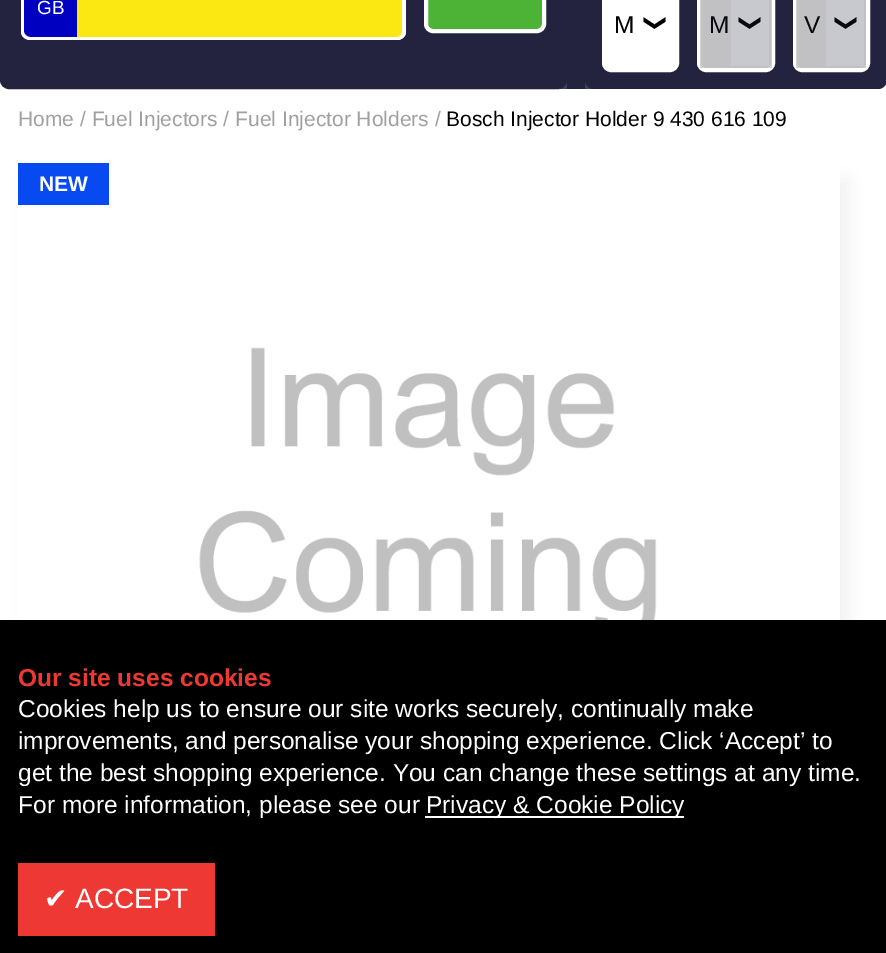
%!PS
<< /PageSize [886 953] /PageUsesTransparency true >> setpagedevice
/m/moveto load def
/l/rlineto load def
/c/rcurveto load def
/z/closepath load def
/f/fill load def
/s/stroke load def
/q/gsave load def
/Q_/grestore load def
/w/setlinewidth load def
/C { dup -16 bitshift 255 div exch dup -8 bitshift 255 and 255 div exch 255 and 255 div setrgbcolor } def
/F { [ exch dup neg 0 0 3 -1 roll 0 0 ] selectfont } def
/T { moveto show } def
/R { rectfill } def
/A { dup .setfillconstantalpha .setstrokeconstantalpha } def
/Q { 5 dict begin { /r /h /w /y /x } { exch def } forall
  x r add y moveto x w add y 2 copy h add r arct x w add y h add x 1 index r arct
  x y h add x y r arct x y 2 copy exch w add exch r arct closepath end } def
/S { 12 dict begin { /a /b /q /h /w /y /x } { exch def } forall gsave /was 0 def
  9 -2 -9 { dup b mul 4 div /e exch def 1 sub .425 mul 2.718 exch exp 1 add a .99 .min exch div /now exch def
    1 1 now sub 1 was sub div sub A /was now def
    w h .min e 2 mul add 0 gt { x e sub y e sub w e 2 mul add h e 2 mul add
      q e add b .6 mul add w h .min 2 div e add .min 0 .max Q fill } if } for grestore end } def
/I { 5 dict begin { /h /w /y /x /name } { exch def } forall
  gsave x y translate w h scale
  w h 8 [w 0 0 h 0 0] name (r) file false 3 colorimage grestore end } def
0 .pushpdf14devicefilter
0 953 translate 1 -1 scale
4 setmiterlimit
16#FFFFFF C
0 0 886 953 R
16#394256 C
0 -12 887 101 12 Q f
16#232340 C
2 -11 563 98 7 Q q f Q_
4 w
s
16#0000C0 C
30 -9 m 47 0 l 0 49 l -47 0 l -5 0 -9 -4 -9 -9 c 0 -31 l 0 -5 4 -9 9 -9 c z f
16#FFFFFF C
30 -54 m 47 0 l 0 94 l -47 0 l -5 0 -9 -4 -9 -8 c 0 -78 l 0 -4 4 -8 9 -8 c z 30 -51 m 47 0 l 0 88 l -47 0 l -3 0 -6 -3 -6 -5 c 0 -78 l 0 -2 3 -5 6 -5 c z eofill
/LiberationSans-Regular 19 F
(GB) 37 14 T
16#FBE712 C
77 -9 m 320 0 l 5 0 9 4 9 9 c 0 31 l 0 5 -4 9 -9 9 c -320 0 l z f
16#FFFFFF C
77 -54 m 320 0 l 5 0 9 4 9 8 c 0 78 l 0 4 -4 8 -9 8 c -320 0 l z 77 -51 m 320 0 l 3 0 5 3 5 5 c 0 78 l 0 2 -2 5 -5 5 c -320 0 l z eofill
16#4CB336 C
426 -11 118 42 7 Q q f Q_
16#FFFFFF C
s
16#232340 C
567 0 18 89 R
585 -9 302 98 9 Q f
16#FFFFFF C
604 -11 73 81 7 Q s
606 0 69 68 R
/LiberationSans-Regular 24.5 F
16#000000 C
(M) 614 33 T
/DejaVuSansMono-Regular 30 F
q 646 14 translate 90 rotate 0 0 m (❯) show Q_
16#FFFFFF C
699 -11 74 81 7 Q s
0.75 A
16#000000 C
700 0 72 68 R
16#FFFFFF C
700 0 72 68 R
/LiberationSans-Regular 24.5 F
1 A
16#090910 C
(M) 709 33 T
16#C8C8CF C
731 0 38 66 R
/DejaVuSansMono-Regular 30 F
16#090910 C
q 741 14 translate 90 rotate 0 0 m (❯) show Q_
16#FFFFFF C
795 -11 73 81 7 Q s
0.75 A
16#000000 C
796 0 70 68 R
16#FFFFFF C
796 0 70 68 R
/LiberationSans-Regular 24.5 F
1 A
16#090910 C
(V) 804 33 T
16#C8C8CF C
826 0 38 66 R
/DejaVuSansMono-Regular 30 F
16#090910 C
q 837 14 translate 90 rotate 0 0 m (❯) show Q_
/LiberationSans-Regular 21 F
16#A0A0A0 C
(Home / Fuel Injectors / Fuel Injector Holders /) 18 126 T
16#000000 C
(Bosch Injector Holder 9 430 616 109) 446 126 T
q
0 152 m 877 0 l 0 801 l -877 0 l z 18 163 m 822 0 l 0 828 l -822 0 l z eoclip newpath
16#F0F0F0 C
26 180 823 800 0 9 1 S
Q_
16#074AF2 C
18 163 91 42 R
/LiberationSans-Bold 21 F
16#FFFFFF C
(NEW) 39 191 T
(1.rgb) 199 347 458 273 I
16#000000 C
0 620 886 333 R
/LiberationSans-Bold 24.5 F
16#ED3833 C
(Our site uses cookies) 18 686 T
/LiberationSans-Regular 24.5 F
16#FFFFFF C
(Cookies help us to ensure our site works securely, continually make) 18 717 T
(improvements, and personalise your shopping experience. Click ‘Accept’ to) 18 749 T
(get the best shopping experience. You can change these settings at any time.) 18 781 T
(For more information, please see our) 18 813 T
425 816 259 2 R
(Privacy & Cookie Policy) 426 813 T
16#ED3833 C
18 863 197 73 R
/DejaVuSans-Regular 28 F
16#FFFFFF C
(✔) 44 908 T
/LiberationSans-Regular 28 F
(ACCEPT) 75 908 T
.poppdf14devicefilter showpage
